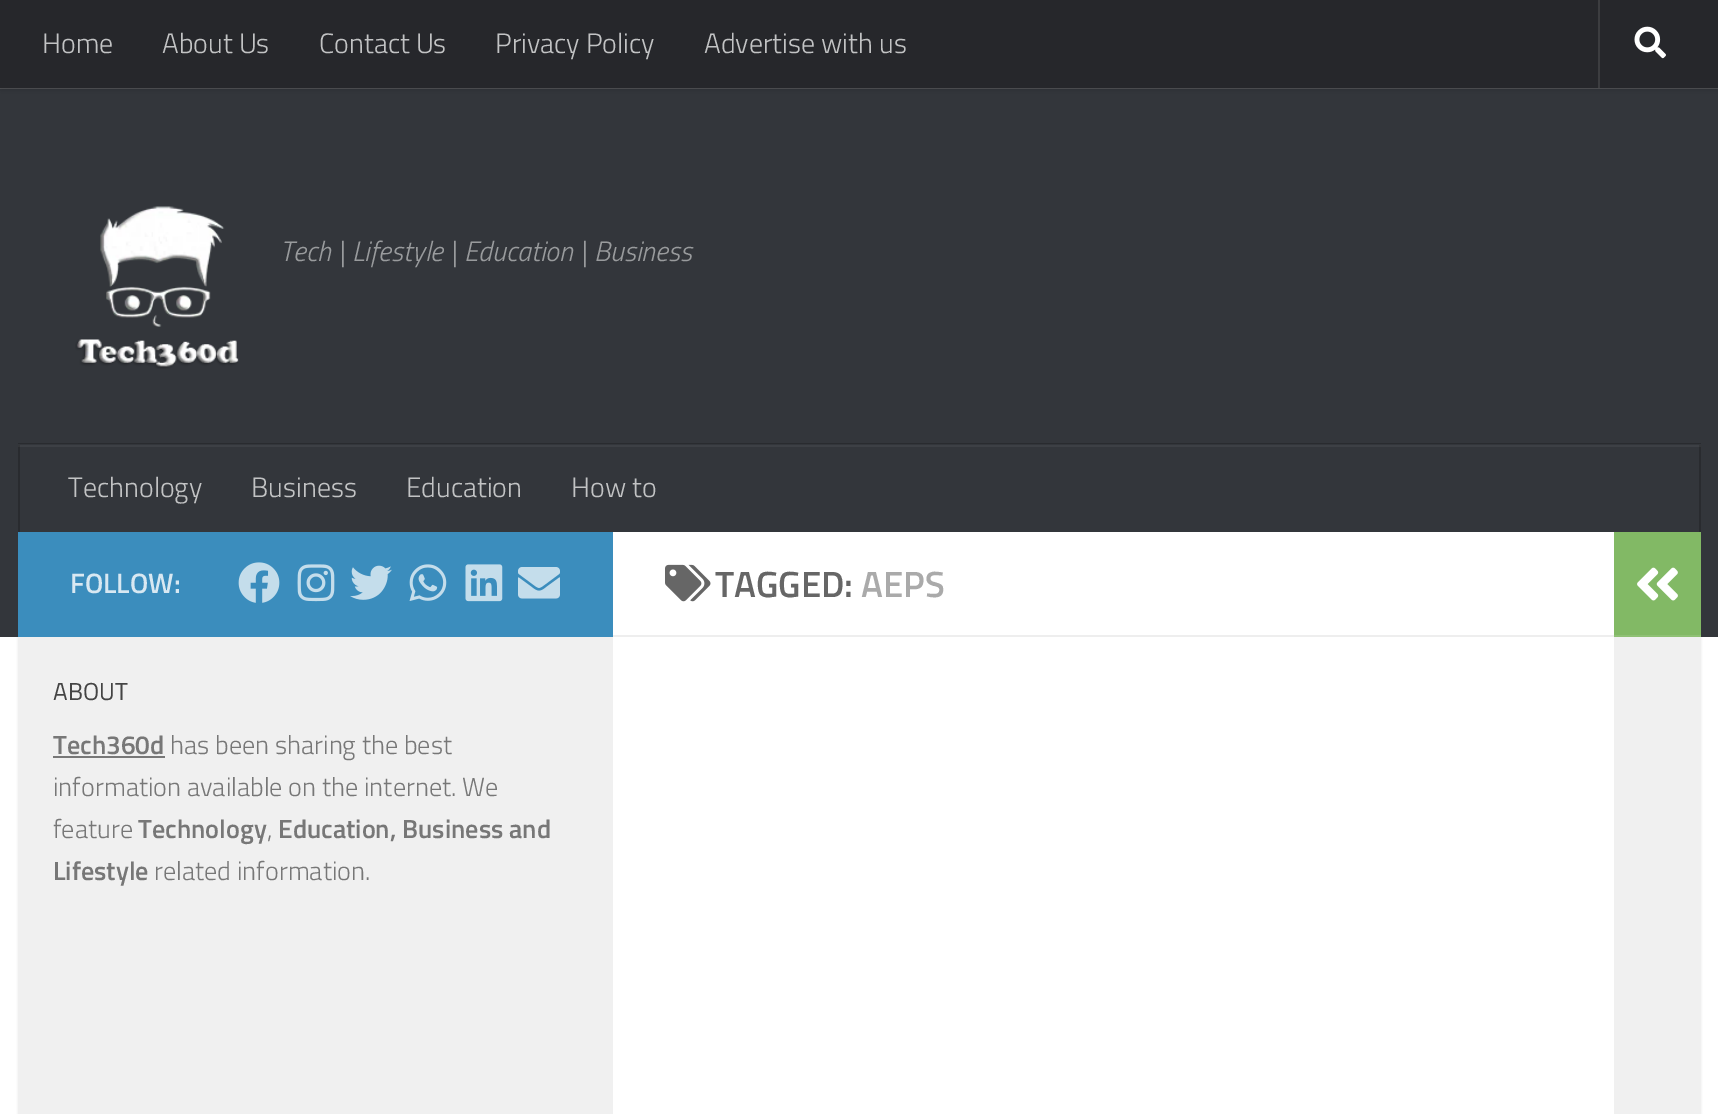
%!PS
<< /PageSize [1718 1114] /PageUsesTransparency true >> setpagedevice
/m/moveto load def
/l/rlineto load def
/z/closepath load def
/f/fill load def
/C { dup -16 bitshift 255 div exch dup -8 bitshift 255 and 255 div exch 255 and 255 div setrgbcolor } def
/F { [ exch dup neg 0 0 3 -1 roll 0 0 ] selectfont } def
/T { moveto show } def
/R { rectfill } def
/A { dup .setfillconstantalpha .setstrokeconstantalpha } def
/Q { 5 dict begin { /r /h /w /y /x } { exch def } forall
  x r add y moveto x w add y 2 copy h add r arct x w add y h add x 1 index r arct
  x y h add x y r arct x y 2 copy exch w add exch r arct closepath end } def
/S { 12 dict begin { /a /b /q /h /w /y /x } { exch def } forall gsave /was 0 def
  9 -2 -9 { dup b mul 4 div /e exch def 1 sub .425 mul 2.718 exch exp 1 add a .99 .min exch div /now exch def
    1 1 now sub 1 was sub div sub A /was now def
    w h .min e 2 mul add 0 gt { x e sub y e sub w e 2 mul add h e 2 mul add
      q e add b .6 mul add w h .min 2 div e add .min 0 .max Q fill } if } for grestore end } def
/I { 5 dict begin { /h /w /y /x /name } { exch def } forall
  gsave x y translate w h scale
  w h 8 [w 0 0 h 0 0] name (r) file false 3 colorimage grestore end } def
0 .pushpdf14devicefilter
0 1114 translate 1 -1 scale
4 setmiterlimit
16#FFFFFF C
0 0 1718 1114 R
16#000000 C
18 534 1683 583 0 1 .1 S
16#33363B C
0 89 1718 548 R
16#3D4045 C
18 445 1683 2 R
16#525458 C
0 88 m 0 1 l 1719 0 l 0 -87 l -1 0 l 0 86 l z f
16#000000 C
0 0 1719 88 0 4.5 .2 S
16#26272B C
0 0 1718 88 R
/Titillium-Light 28 F
16#C2C3C4 C
(Home) 42 53 T
(About Us) 162 53 T
(Contact Us) 319 53 T
(Privacy Policy) 495 53 T
(Advertise with us) 704 53 T
16#3C3D40 C
1598 0 m 0 88 l 101 0 l -99 0 l 0 -88 l z f
(1.rgb) 1634 26 32 33 I
(2.rgb) 75 206 164 163 I
/Titillium-LightItalic 28 F
16#999B9D C
(Tech | Lifestyle | Education | Business) 280 261 T
16#292B2F C
18 443 1683 1 R
1699 445 2 87 R
16#343639 C
1699 445 2 2 R
16#292B2F C
18 445 2 87 R
16#343639 C
18 445 2 2 R
/Titillium-Light 28 F
16#C2C3C4 C
(Technology) 68 497 T
(Business) 251 497 T
(Education) 406 497 T
(How to) 571 497 T
16#FFFFFF C
613 532 1001 582 R
16#3B8DBD C
18 532 595 105 R
/Titillium-SemiBold 28 F
16#D8E8F2 C
(FOLLOW:) 70 593 T
(3.rgb) 238 562 42 41 I
(4.rgb) 297 564 38 38 I
(5.rgb) 350 565 42 35 I
(6.rgb) 409 564 38 37 I
(7.rgb) 465 564 38 38 I
(8.rgb) 518 567 42 32 I
16#F0F0F0 C
18 637 595 477 R
/Titillium-Regular 24.5 F
16#444444 C
(ABOUT) 53 700 T
/Titillium-SemiBold 26.25 F
16#777777 C
(Tech360d) 53 754 T
53 756 112 2 R
/Titillium-Light 26.25 F
(has been sharing the best) 170 754 T
(information available on the internet. We) 53 796 T
(feature) 53 838 T
/Titillium-SemiBold 26.25 F
(Technology) 138 838 T
/Titillium-Light 26.25 F
(,) 267 838 T
/Titillium-SemiBold 26.25 F
(Education, Business and) 278 838 T
(Lifestyle) 53 880 T
/Titillium-Light 26.25 F
(related information.) 154 880 T
16#EEEEEE C
613 635 1001 2 R
(9.rgb) 665 564 46 38 I
/Titillium-SemiBold 36.5 F
16#666666 C
(TAGGED:) 715 597 T
16#AAAAAA C
(AEPS) 861 597 T
16#82B965 C
1614 532 87 103 R
16#8FC074 C
1614 635 87 2 R
(10.rgb) 1637 567 41 34 I
16#F0F0F0 C
1614 637 87 477 R
.poppdf14devicefilter showpage
